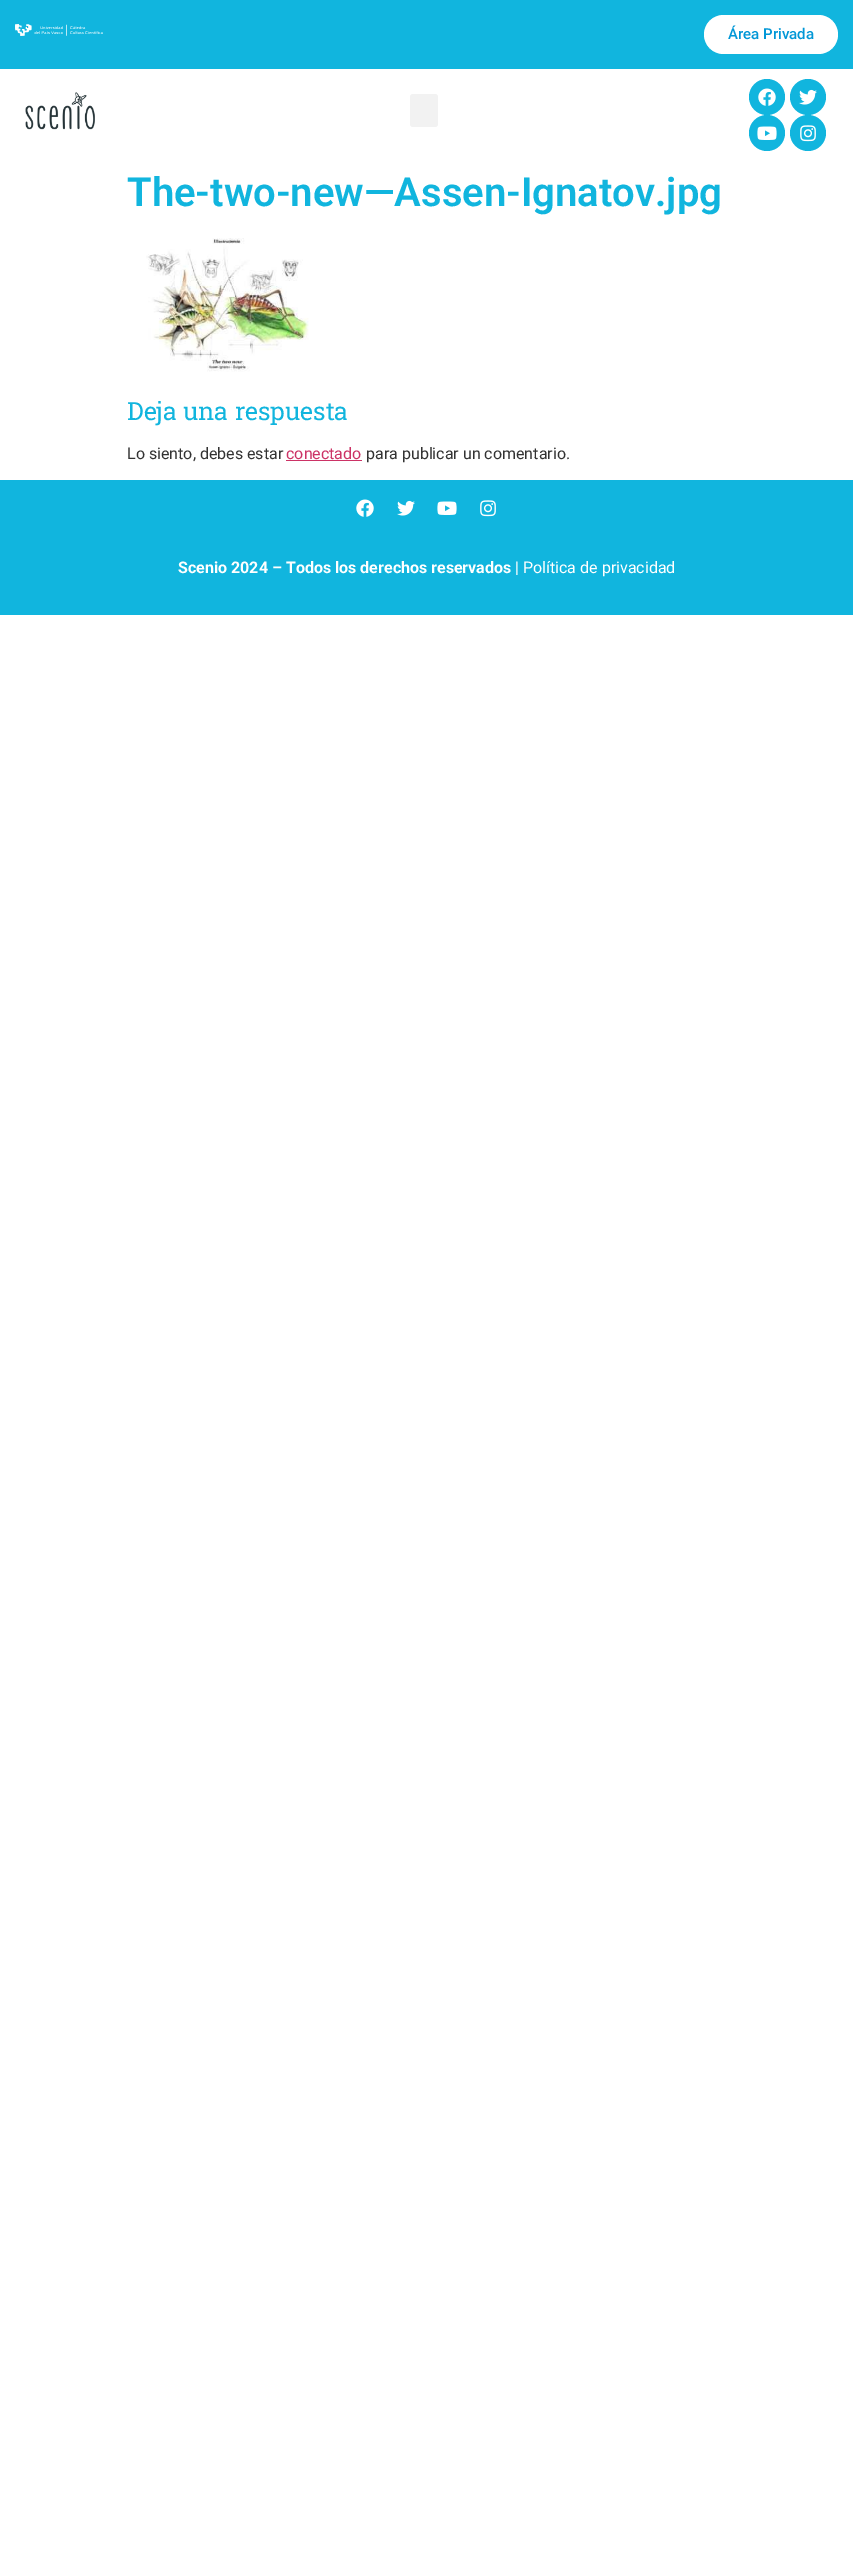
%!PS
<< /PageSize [853 2562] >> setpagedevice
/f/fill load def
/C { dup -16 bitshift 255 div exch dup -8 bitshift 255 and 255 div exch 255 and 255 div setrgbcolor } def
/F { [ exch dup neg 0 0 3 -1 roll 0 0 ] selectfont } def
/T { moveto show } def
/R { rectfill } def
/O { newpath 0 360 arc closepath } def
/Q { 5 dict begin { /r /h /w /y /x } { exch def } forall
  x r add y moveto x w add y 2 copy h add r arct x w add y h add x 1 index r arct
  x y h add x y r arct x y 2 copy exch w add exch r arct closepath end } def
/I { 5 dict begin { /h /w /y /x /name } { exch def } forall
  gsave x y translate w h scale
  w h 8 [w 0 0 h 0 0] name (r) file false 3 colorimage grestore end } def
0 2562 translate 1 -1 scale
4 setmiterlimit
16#FFFFFF C
0 0 853 2562 R
16#11B5DE C
0 0 853 69 R
(1.rgb) 15 24 88 12 I
16#FFFFFF C
704 15 134 39 19.5 Q f
/Roboto-Medium 15 F
16#0097D7 C
(Área Privada) 728 39 T
(2.rgb) 25 92 70 38 I
16#F2F2F2 C
410 94 28 33 3 Q f
16#11B5DE C
767 97 18 O f
(3.rgb) 758 88 18 18 I
808 97 18 O f
(4.rgb) 799 89 18 16 I
767 133 18 O f
(5.rgb) 757 126 20 14 I
808 133 18 O f
(6.rgb) 800 125 16 17 I
/Roboto-SemiBold 40 F
(The-two-new—Assen-Ignatov.jpg) 127 206 T
(7.rgb) 146 238 163 134 I
/RobotoSlab-Regular 25 F
(Deja una respuesta) 127 420 T
/Roboto-Regular 16 F
16#333333 C
(Lo siento, debes estar) 127 459 T
16#CC3366 C
(conectado) 286 459 T
286 460 76 1 R
16#333333 C
(para publicar un comentario.) 366 459 T
16#11B5DE C
0 480 853 135 R
(3.rgb) 356 499 18 18 I
(4.rgb) 397 500 18 16 I
(5.rgb) 437 501 20 14 I
(6.rgb) 480 500 16 17 I
/Roboto-Bold 16 F
16#FFFFFF C
(Scenio 2024 – Todos los derechos reservados) 178 573 T
/Roboto-Regular 16 F
(| Política de privacidad) 515 573 T
showpage
